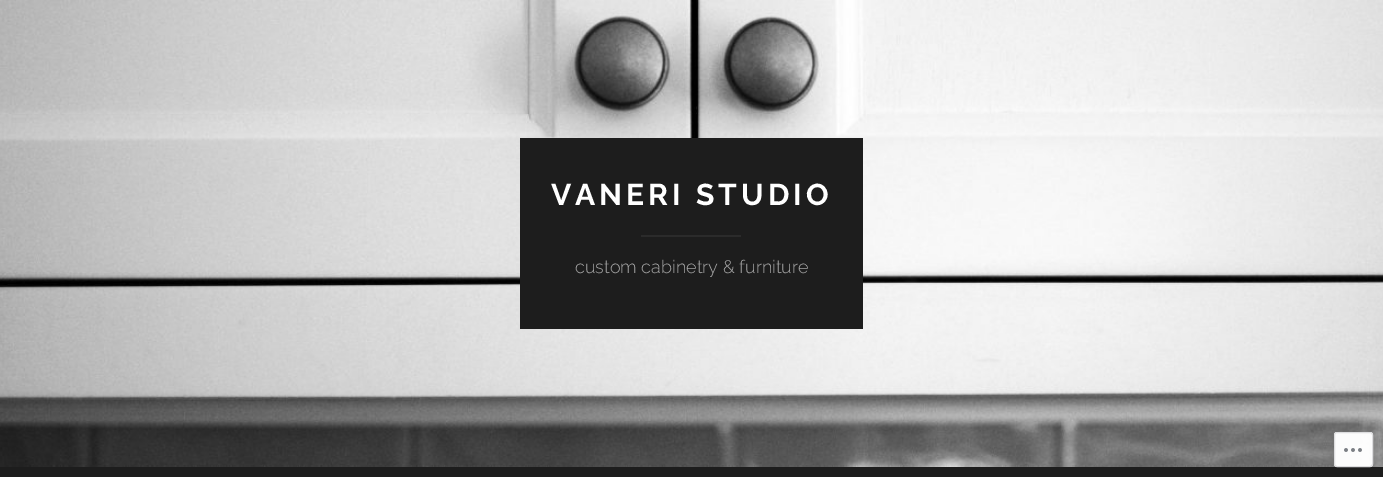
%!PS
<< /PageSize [1383 477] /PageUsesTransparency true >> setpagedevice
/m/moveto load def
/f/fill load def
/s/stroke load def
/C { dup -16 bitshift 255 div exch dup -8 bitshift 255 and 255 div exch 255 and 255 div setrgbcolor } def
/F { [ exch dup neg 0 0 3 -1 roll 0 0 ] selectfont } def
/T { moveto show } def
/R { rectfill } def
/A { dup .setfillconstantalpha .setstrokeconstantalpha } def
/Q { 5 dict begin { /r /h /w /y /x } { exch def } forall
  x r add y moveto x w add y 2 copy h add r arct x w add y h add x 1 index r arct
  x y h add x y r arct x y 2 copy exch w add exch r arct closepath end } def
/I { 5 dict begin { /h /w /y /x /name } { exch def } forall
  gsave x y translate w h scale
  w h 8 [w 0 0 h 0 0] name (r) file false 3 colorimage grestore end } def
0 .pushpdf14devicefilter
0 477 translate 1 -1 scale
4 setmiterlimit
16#FFFFFF C
0 0 1383 477 R
(1.rgb) 0 0 1383 467 I
16#1D1D1D C
520 138 343 191 R
/Raleway-Bold 30 F
16#FFFFFF C
551 205 m 4 0 (VANERI STUDIO) ashow
16#2B2B2B C
641 235 100 2 R
/Raleway-Light 18 F
16#A5A5A5 C
(custom cabinetry & furniture) 575 273 T
16#1D1D1D C
0 467 1383 10 R
0.98 A
16#FFFFFF C
1334 432 39 35 3 Q f
16#DCDCDE C
1334.5 432.5 38 34 2.5 Q s
1 A
(2.rgb) 1344 448 18 4 I
.poppdf14devicefilter showpage
